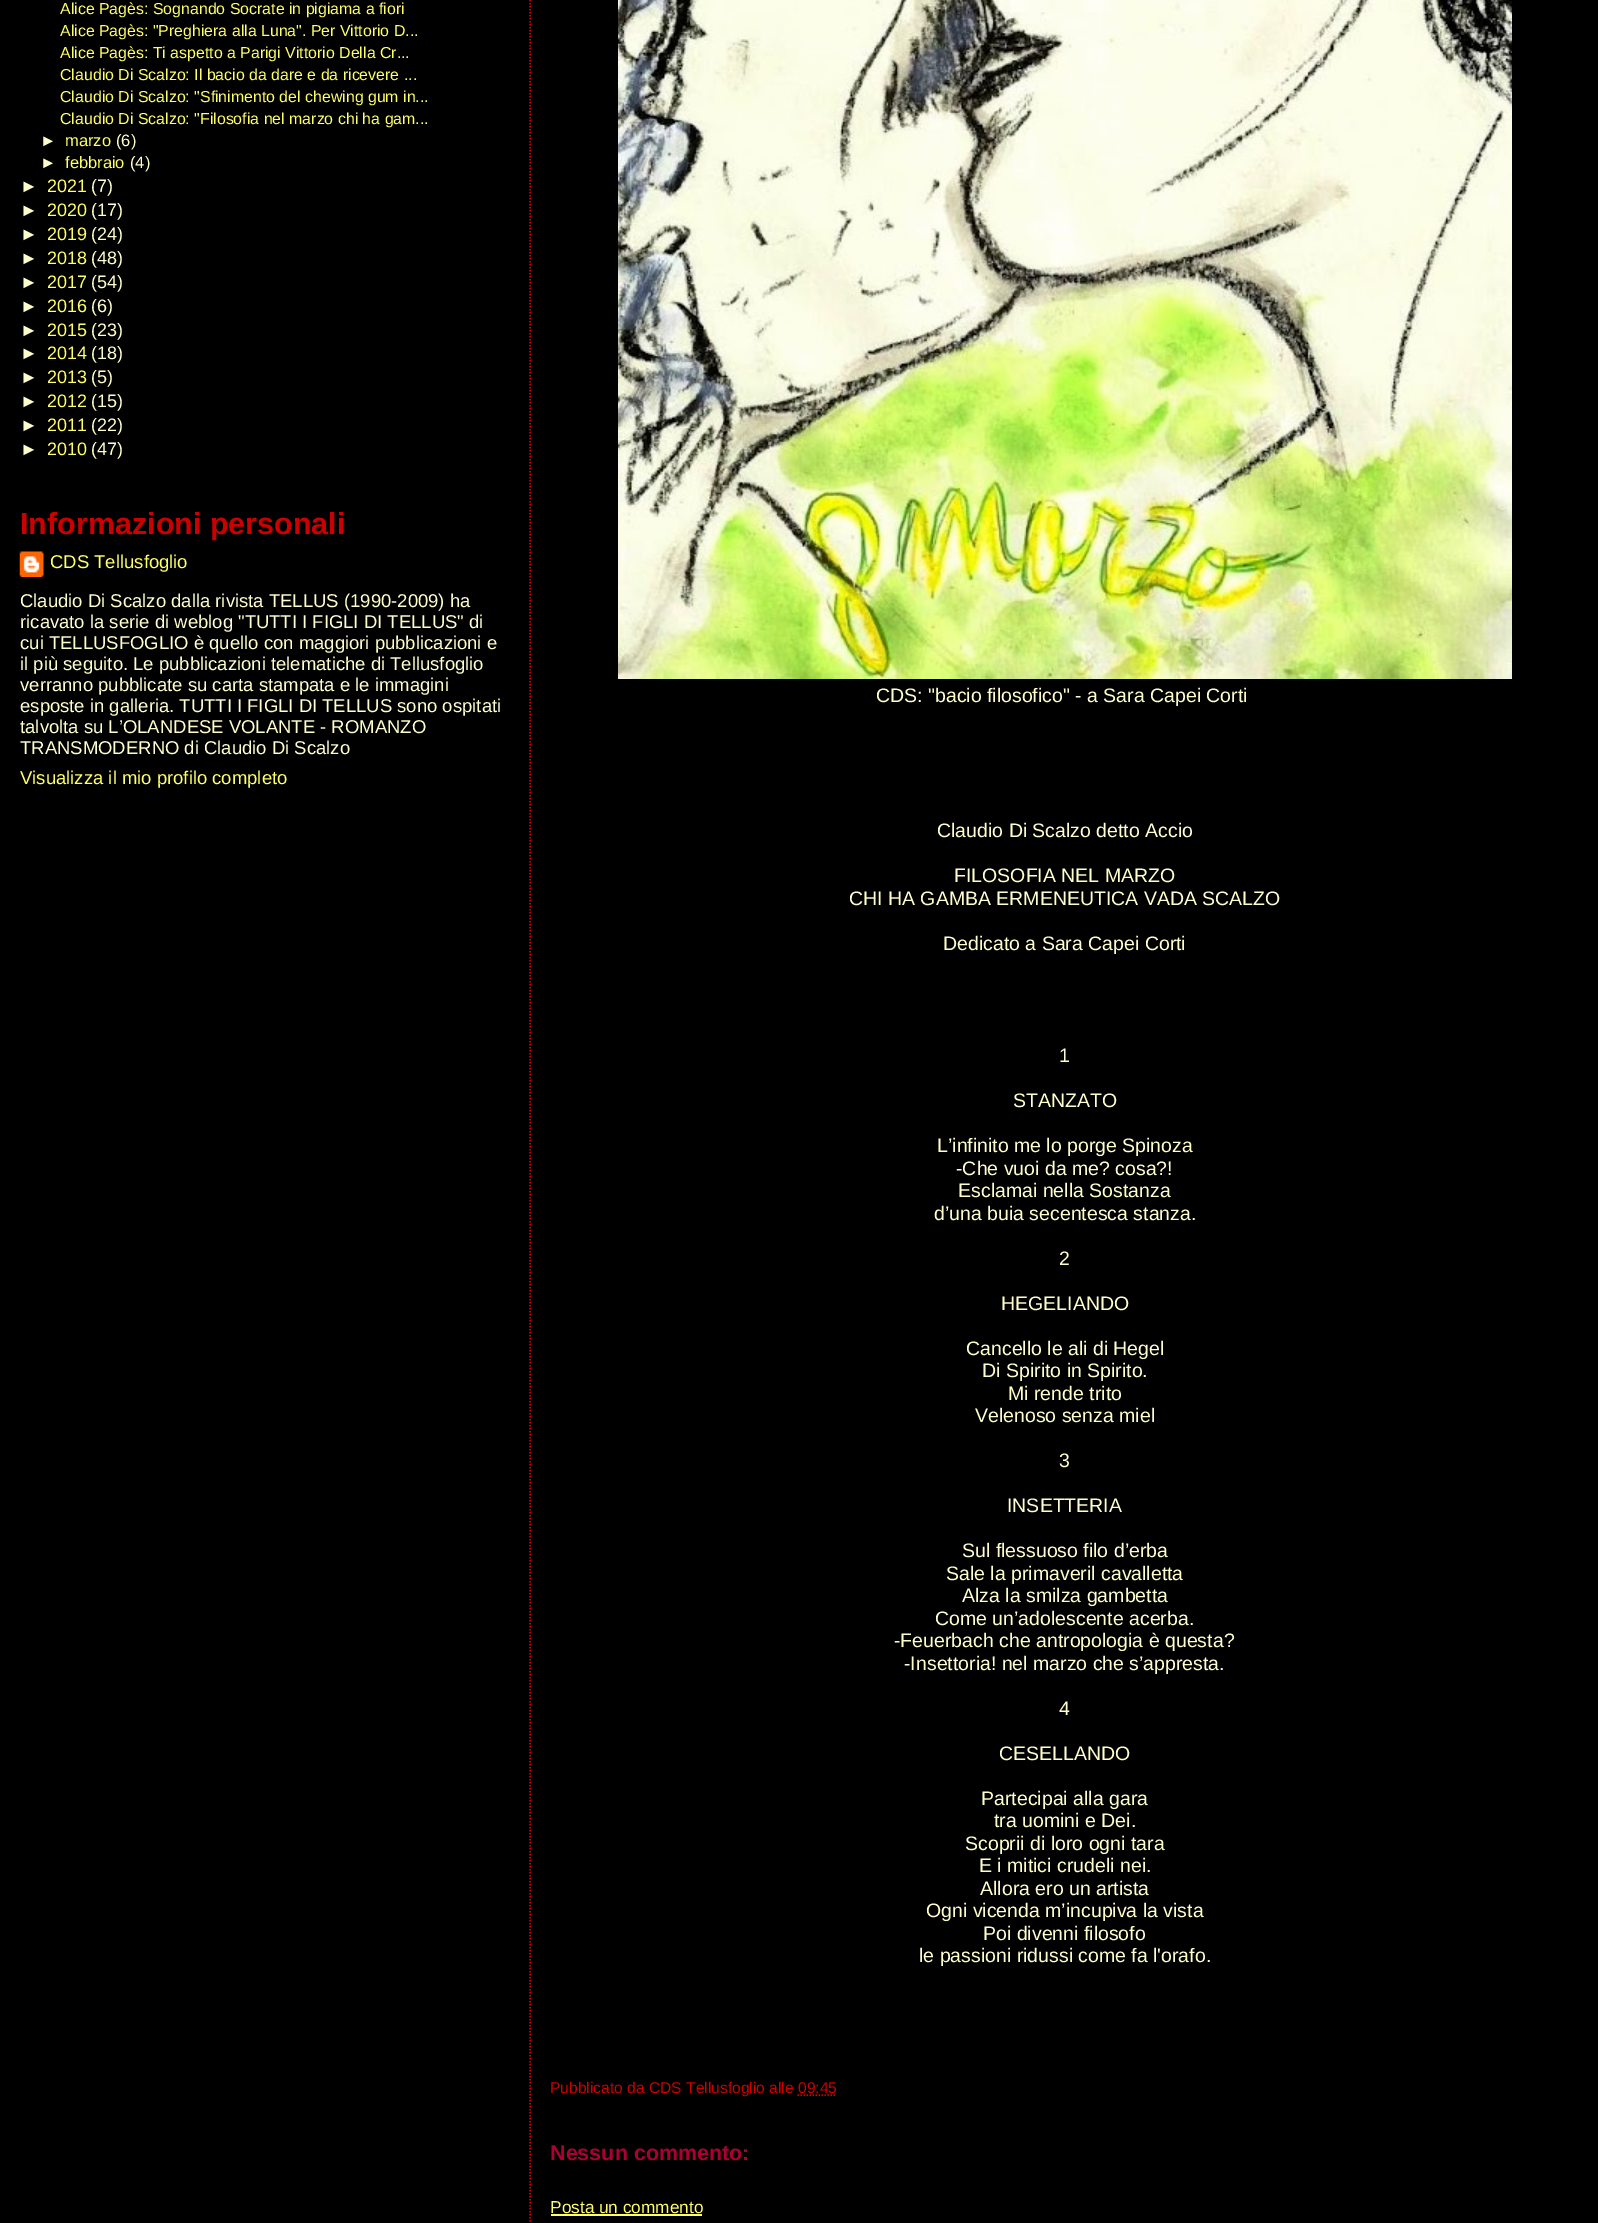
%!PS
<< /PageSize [1598 2223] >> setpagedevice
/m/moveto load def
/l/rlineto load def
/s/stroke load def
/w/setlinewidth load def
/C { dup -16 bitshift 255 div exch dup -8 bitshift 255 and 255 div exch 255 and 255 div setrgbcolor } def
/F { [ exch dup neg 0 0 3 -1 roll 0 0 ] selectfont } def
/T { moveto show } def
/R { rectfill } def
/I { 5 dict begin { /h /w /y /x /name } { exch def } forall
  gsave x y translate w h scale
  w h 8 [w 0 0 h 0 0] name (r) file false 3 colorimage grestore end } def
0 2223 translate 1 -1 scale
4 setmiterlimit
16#000000 C
0 0 1598 2223 R
/LiberationSans-Regular 15.9 F
16#FFFF66 C
(Alice Pagès: Sognando Socrate in pigiama a fiori) 60 14 T
(Alice Pagès: "Preghiera alla Luna". Per Vittorio D...) 60 36 T
(Alice Pagès: Ti aspetto a Parigi Vittorio Della Cr...) 60 58 T
(Claudio Di Scalzo: Il bacio da dare e da ricevere ...) 60 80 T
(Claudio Di Scalzo: "Sfinimento del chewing gum in...) 60 102 T
(Claudio Di Scalzo: "Filosofia nel marzo chi ha gam...) 60 124 T
/LiberationSans-Regular 16.5 F
16#FFFFCC C
(►) 40 146 T
16#FFFF66 C
(marzo) 65 146 T
16#FFFFCC C
(\(6\)) 116 146 T
(►) 40 168 T
16#FFFF66 C
(febbraio) 65 168 T
16#FFFFCC C
(\(4\)) 130 168 T
/LiberationSans-Regular 18 F
(►) 20 192 T
16#FFFF66 C
(2021) 47 192 T
16#FFFFCC C
(\(7\)) 91 192 T
(►) 20 216 T
16#FFFF66 C
(2020) 47 216 T
16#FFFFCC C
(\(17\)) 91 216 T
(►) 20 240 T
16#FFFF66 C
(2019) 47 240 T
16#FFFFCC C
(\(24\)) 91 240 T
(►) 20 264 T
16#FFFF66 C
(2018) 47 264 T
16#FFFFCC C
(\(48\)) 91 264 T
(►) 20 288 T
16#FFFF66 C
(2017) 47 288 T
16#FFFFCC C
(\(54\)) 91 288 T
(►) 20 312 T
16#FFFF66 C
(2016) 47 312 T
16#FFFFCC C
(\(6\)) 91 312 T
(►) 20 336 T
16#FFFF66 C
(2015) 47 336 T
16#FFFFCC C
(\(23\)) 91 336 T
(►) 20 359 T
16#FFFF66 C
(2014) 47 359 T
16#FFFFCC C
(\(18\)) 91 359 T
(►) 20 383 T
16#FFFF66 C
(2013) 47 383 T
16#FFFFCC C
(\(5\)) 91 383 T
(►) 20 407 T
16#FFFF66 C
(2012) 47 407 T
16#FFFFCC C
(\(15\)) 91 407 T
(►) 20 431 T
16#FFFF66 C
(2011) 47 431 T
16#FFFFCC C
(\(22\)) 91 431 T
(►) 20 455 T
16#FFFF66 C
(2010) 47 455 T
16#FFFFCC C
(\(47\)) 91 455 T
/LiberationSans-Bold 30.5 F
16#CC0000 C
(Informazioni personali) 20 534 T
(1.rgb) 19 551 25 26 I
/LiberationSans-Regular 18.5 F
16#FFFF66 C
(CDS Tellusfoglio) 50 568 T
16#FFFFCC C
(Claudio Di Scalzo dalla rivista TELLUS \(1990-2009\) ha) 20 607 T
(ricavato la serie di weblog "TUTTI I FIGLI DI TELLUS" di) 20 628 T
(cui TELLUSFOGLIO è quello con maggiori pubblicazioni e) 20 649 T
(il più seguito. Le pubblicazioni telematiche di Tellusfoglio) 20 670 T
(verranno pubblicate su carta stampata e le immagini) 20 691 T
(esposte in galleria. TUTTI I FIGLI DI TELLUS sono ospitati) 20 712 T
(talvolta su L’OLANDESE VOLANTE - ROMANZO) 20 733 T
(TRANSMODERNO di Claudio Di Scalzo) 20 754 T
16#FFFF66 C
(Visualizza il mio profilo completo) 20 784 T
16#CC0000 C
1.5 w
[1.5 1.5] 0 setdash
530 -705 m 0 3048 l s
(2.rgb) 618 0 894 679 I
/LiberationSans-Regular 19.5 F
16#FFFFCC C
(CDS: "bacio filosofico" - a Sara Capei Corti) 876 702 T
(Claudio Di Scalzo detto Accio) 937 837 T
(FILOSOFIA NEL MARZO) 954 882 T
(CHI HA GAMBA ERMENEUTICA VADA SCALZO) 849 905 T
(Dedicato a Sara Capei Corti) 943 950 T
(1) 1059 1062 T
(STANZATO) 1013 1107 T
(L’infinito me lo porge Spinoza) 937 1152 T
(-Che vuoi da me? cosa?!) 956 1175 T
(Esclamai nella Sostanza) 958 1197 T
(d’una buia secentesca stanza.) 934 1220 T
(2) 1059 1265 T
(HEGELIANDO) 1001 1310 T
(Cancello le ali di Hegel) 966 1355 T
(Di Spirito in Spirito.) 982 1377 T
(Mi rende trito) 1008 1400 T
(Velenoso senza miel) 975 1422 T
(3) 1059 1467 T
(INSETTERIA) 1007 1512 T
(Sul flessuoso filo d’erba) 962 1557 T
(Sale la primaveril cavalletta) 946 1580 T
(Alza la smilza gambetta) 962 1602 T
(Come un’adolescente acerba.) 935 1625 T
(-Feuerbach che antropologia è questa?) 894 1647 T
(-Insettoria! nel marzo che s’appresta.) 904 1670 T
(4) 1059 1715 T
(CESELLANDO) 999 1760 T
(Partecipai alla gara) 981 1805 T
(tra uomini e Dei.) 994 1827 T
(Scoprii di loro ogni tara) 965 1850 T
(E i mitici crudeli nei.) 979 1872 T
(Allora ero un artista) 980 1895 T
(Ogni vicenda m’incupiva la vista) 926 1917 T
(Poi divenni filosofo) 983 1940 T
(le passioni ridussi come fa l'orafo.) 919 1962 T
/LiberationSans-Regular 15.6 F
16#CC0000 C
(Pubblicato da CDS Tellusfoglio alle 09:45) 550 2093 T
797.5 2095 m 39 0 l s
/LiberationSans-Bold 21.5 F
16#AA0033 C
(Nessun commento:) 550 2160 T
/LiberationSans-Regular 17.25 F
16#FFFF66 C
(Posta un commento) 550 2213 T
551 2214 151 2 R
showpage
